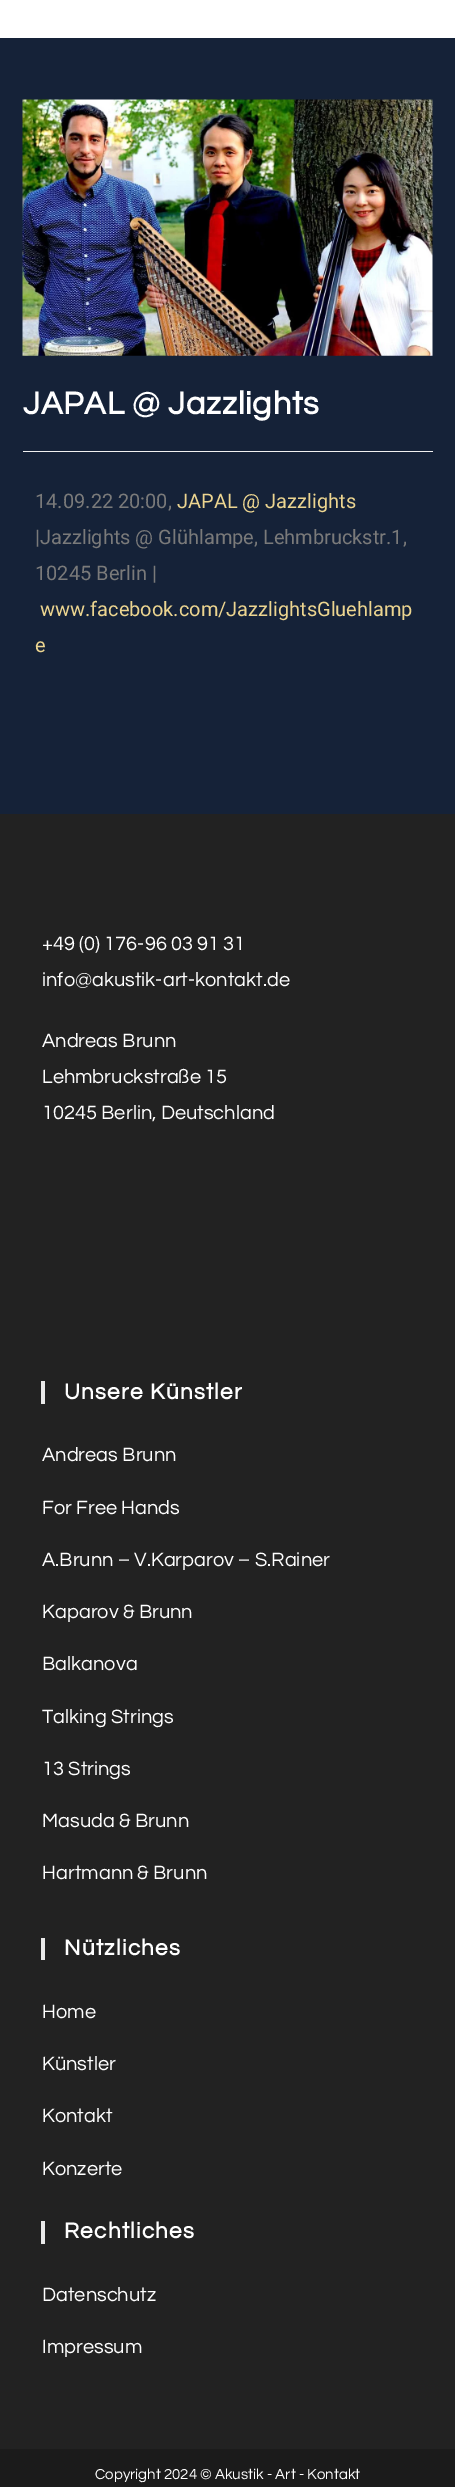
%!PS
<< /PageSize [455 2487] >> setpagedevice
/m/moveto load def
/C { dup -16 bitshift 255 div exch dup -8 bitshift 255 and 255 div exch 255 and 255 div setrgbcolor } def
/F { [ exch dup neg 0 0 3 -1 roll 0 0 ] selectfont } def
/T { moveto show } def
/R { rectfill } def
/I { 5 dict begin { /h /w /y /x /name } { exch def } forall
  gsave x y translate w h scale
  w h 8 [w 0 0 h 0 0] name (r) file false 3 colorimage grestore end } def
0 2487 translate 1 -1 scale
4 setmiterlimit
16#152238 C
0 0 455 2487 R
16#FFFFFF C
0 0 455 38 R
(1.rgb) 22 99 411 257 I
16#F1F1F1 C
23 451 410 1 R
/Questrial-Bold 32.5 F
16#FFFFFF C
23 414 m .75 0 (JAPAL @ Jazzlights) ashow
/Roboto-Regular 20 F
16#7A7A7A C
(14.09.22 20:00,) 35 508 T
16#ECD590 C
(JAPAL @ Jazzlights) 177 508 T
16#7A7A7A C
(|Jazzlights @ Glühlampe, Lehmbruckstr.1,) 35 544 T
(10245 Berlin |) 35 580 T
16#ECD590 C
(www.facebook.com/JazzlightsGluehlamp) 40 616 T
(e) 35 652 T
16#222222 C
0 814 455 1635 R
/Questrial-Regular 20 F
16#FFFFFF C
(+49 \(0\) 176-96 03 91 31) 42 950 T
(info@akustik-art-kontakt.de) 42 986 T
(Andreas Brunn) 42 1047 T
(Lehmbruckstraße 15) 42 1083 T
(10245 Berlin, Deutschland) 42 1119 T
16#EAEAEA C
41 1381 4 23 R
/Questrial-Bold 22.5 F
16#FFFFFF C
64 1399 m 1.25 0 (Unsere Künstler) ashow
/Questrial-Regular 20 F
(Andreas Brunn) 42 1461 T
(For Free Hands) 42 1514 T
(A.Brunn – V.Karparov – S.Rainer) 42 1566 T
(Kaparov & Brunn) 42 1618 T
(Balkanova) 42 1670 T
(Talking Strings) 42 1723 T
(13 Strings) 42 1775 T
(Masuda & Brunn) 42 1827 T
(Hartmann & Brunn) 42 1879 T
16#EAEAEA C
41 1938 4 22 R
/Questrial-Bold 22.5 F
16#FFFFFF C
64 1955 m 1.25 0 (Nützliches) ashow
/Questrial-Regular 20 F
(Home) 42 2018 T
(Künstler) 42 2070 T
(Kontakt) 42 2122 T
(Konzerte) 42 2175 T
16#EAEAEA C
41 2221 4 23 R
/Questrial-Bold 22.5 F
16#FFFFFF C
64 2238 m 1.25 0 (Rechtliches) ashow
/Questrial-Regular 20 F
(Datenschutz) 42 2301 T
(Impressum) 42 2353 T
16#1B1B1B C
0 2449 455 38 R
/Questrial-Regular 15 F
16#FFFFFF C
(Copyright 2024 © Akustik - Art - Kontakt) 95 2479 T
showpage
